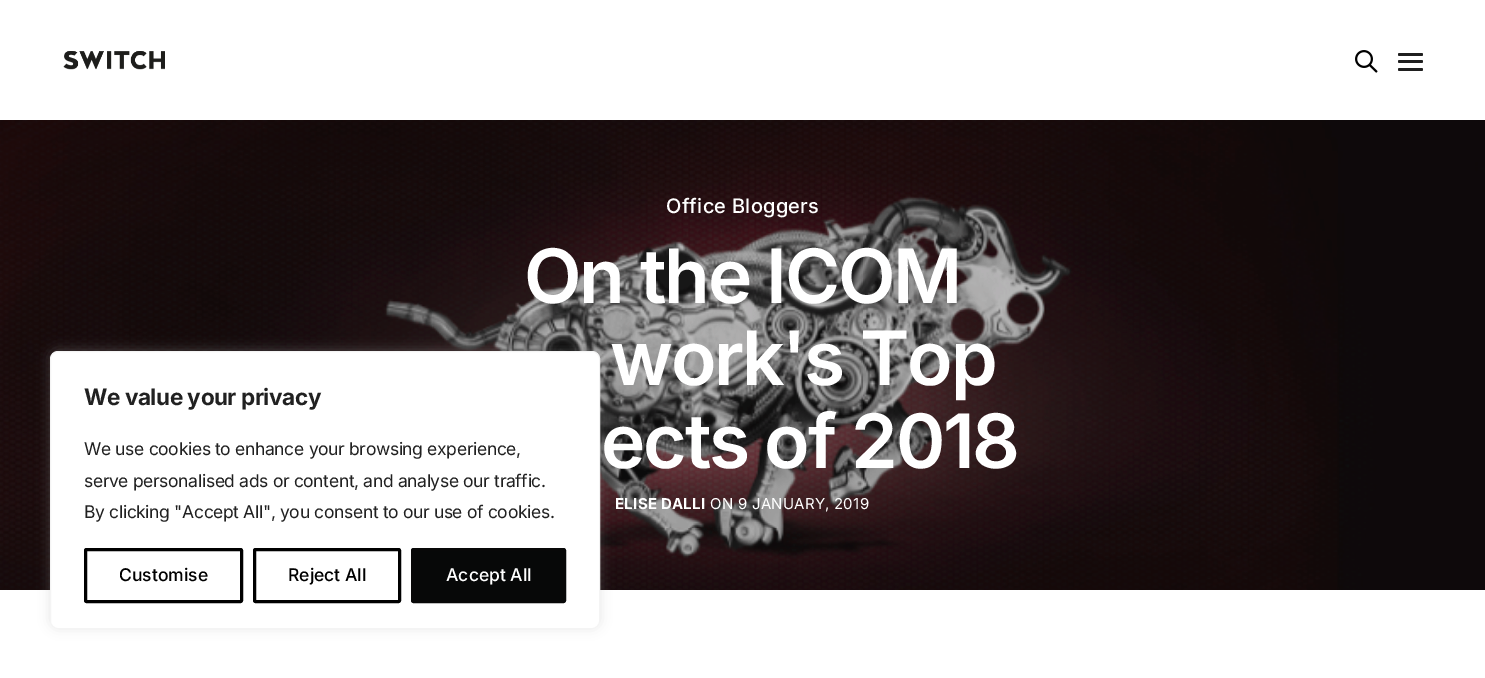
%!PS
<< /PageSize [1485 678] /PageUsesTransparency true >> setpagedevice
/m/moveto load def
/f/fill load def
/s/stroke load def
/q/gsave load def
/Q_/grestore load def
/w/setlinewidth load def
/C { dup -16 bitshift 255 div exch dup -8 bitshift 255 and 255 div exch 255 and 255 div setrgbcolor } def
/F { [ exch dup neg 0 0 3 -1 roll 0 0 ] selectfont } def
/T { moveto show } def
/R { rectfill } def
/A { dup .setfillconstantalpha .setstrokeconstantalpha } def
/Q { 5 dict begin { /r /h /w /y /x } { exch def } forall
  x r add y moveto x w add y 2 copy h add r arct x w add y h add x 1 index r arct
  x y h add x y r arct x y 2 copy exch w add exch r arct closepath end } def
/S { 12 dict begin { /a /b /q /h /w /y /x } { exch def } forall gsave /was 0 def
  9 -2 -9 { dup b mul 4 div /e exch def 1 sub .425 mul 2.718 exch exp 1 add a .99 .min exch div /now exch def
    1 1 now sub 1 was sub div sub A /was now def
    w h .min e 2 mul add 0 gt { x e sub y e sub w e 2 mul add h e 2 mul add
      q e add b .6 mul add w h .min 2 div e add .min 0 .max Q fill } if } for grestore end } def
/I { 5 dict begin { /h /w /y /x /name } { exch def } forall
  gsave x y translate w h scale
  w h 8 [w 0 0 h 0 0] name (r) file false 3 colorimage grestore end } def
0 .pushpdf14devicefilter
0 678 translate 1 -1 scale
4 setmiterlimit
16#FFFFFF C
0 0 1485 678 R
16#1F1F1F C
0 120 1485 470 R
(3.rgb) 0 120 1485 470 I
16#ACABAB C
50 350 550 278 8 6 .3 S
16#FFFFFF C
50.5 351.5 549 277 7.5 Q q f Q_
16#F4F4F4 C
s
/Inter-Bold 22.5 F
16#212121 C
84 405 m -.45 0 (We value your privacy) ashow
/Inter-Regular 17.5 F
84 455 m -.35 0 (We use cookies to enhance your browsing experience,) ashow
84 487 m -.35 0 (serve personalised ads or content, and analyse our traffic.) ashow
84 518 m -.35 0 (By clicking "Accept All", you consent to our use of cookies.) ashow
16#000000 C
3 w
85.5 549.5 156 52 1 Q s
/Inter-Medium 17.5 F
(Customise) 119 581 T
254.5 549.5 145 52 1 Q s
(Reject All) 288 581 T
16#070808 C
412.5 549.5 152 52 1 Q q f Q_
16#080808 C
s
16#FFFFFF C
(Accept All) 446 581 T
(1.rgb) 63 51 102 19 I
(2.rgb) 1355 50 23 23 I
16#1F1F1F C
1398 53 25 3 1.5 Q f
1398 60 25 3 1.5 Q f
1398 68 25 3 1.5 Q f
/Inter-Medium 20 F
16#FFFFFF C
666 213 m .25 0 (Office Bloggers) ashow
/Inter-SemiBold 75 F
524 303 m -2.25 0 (On the ICOM) ashow
610 385 m -2.25 0 (work's Top) ashow
601 468 m -2.25 0 (ects of 2018) ashow
/Inter-Bold 15 F
615 509 m .25 0 (ELISE DALLI) ashow
/Inter-Regular 15 F
710 509 m .25 0 (ON 9 JANUARY, 2019) ashow
.poppdf14devicefilter showpage
